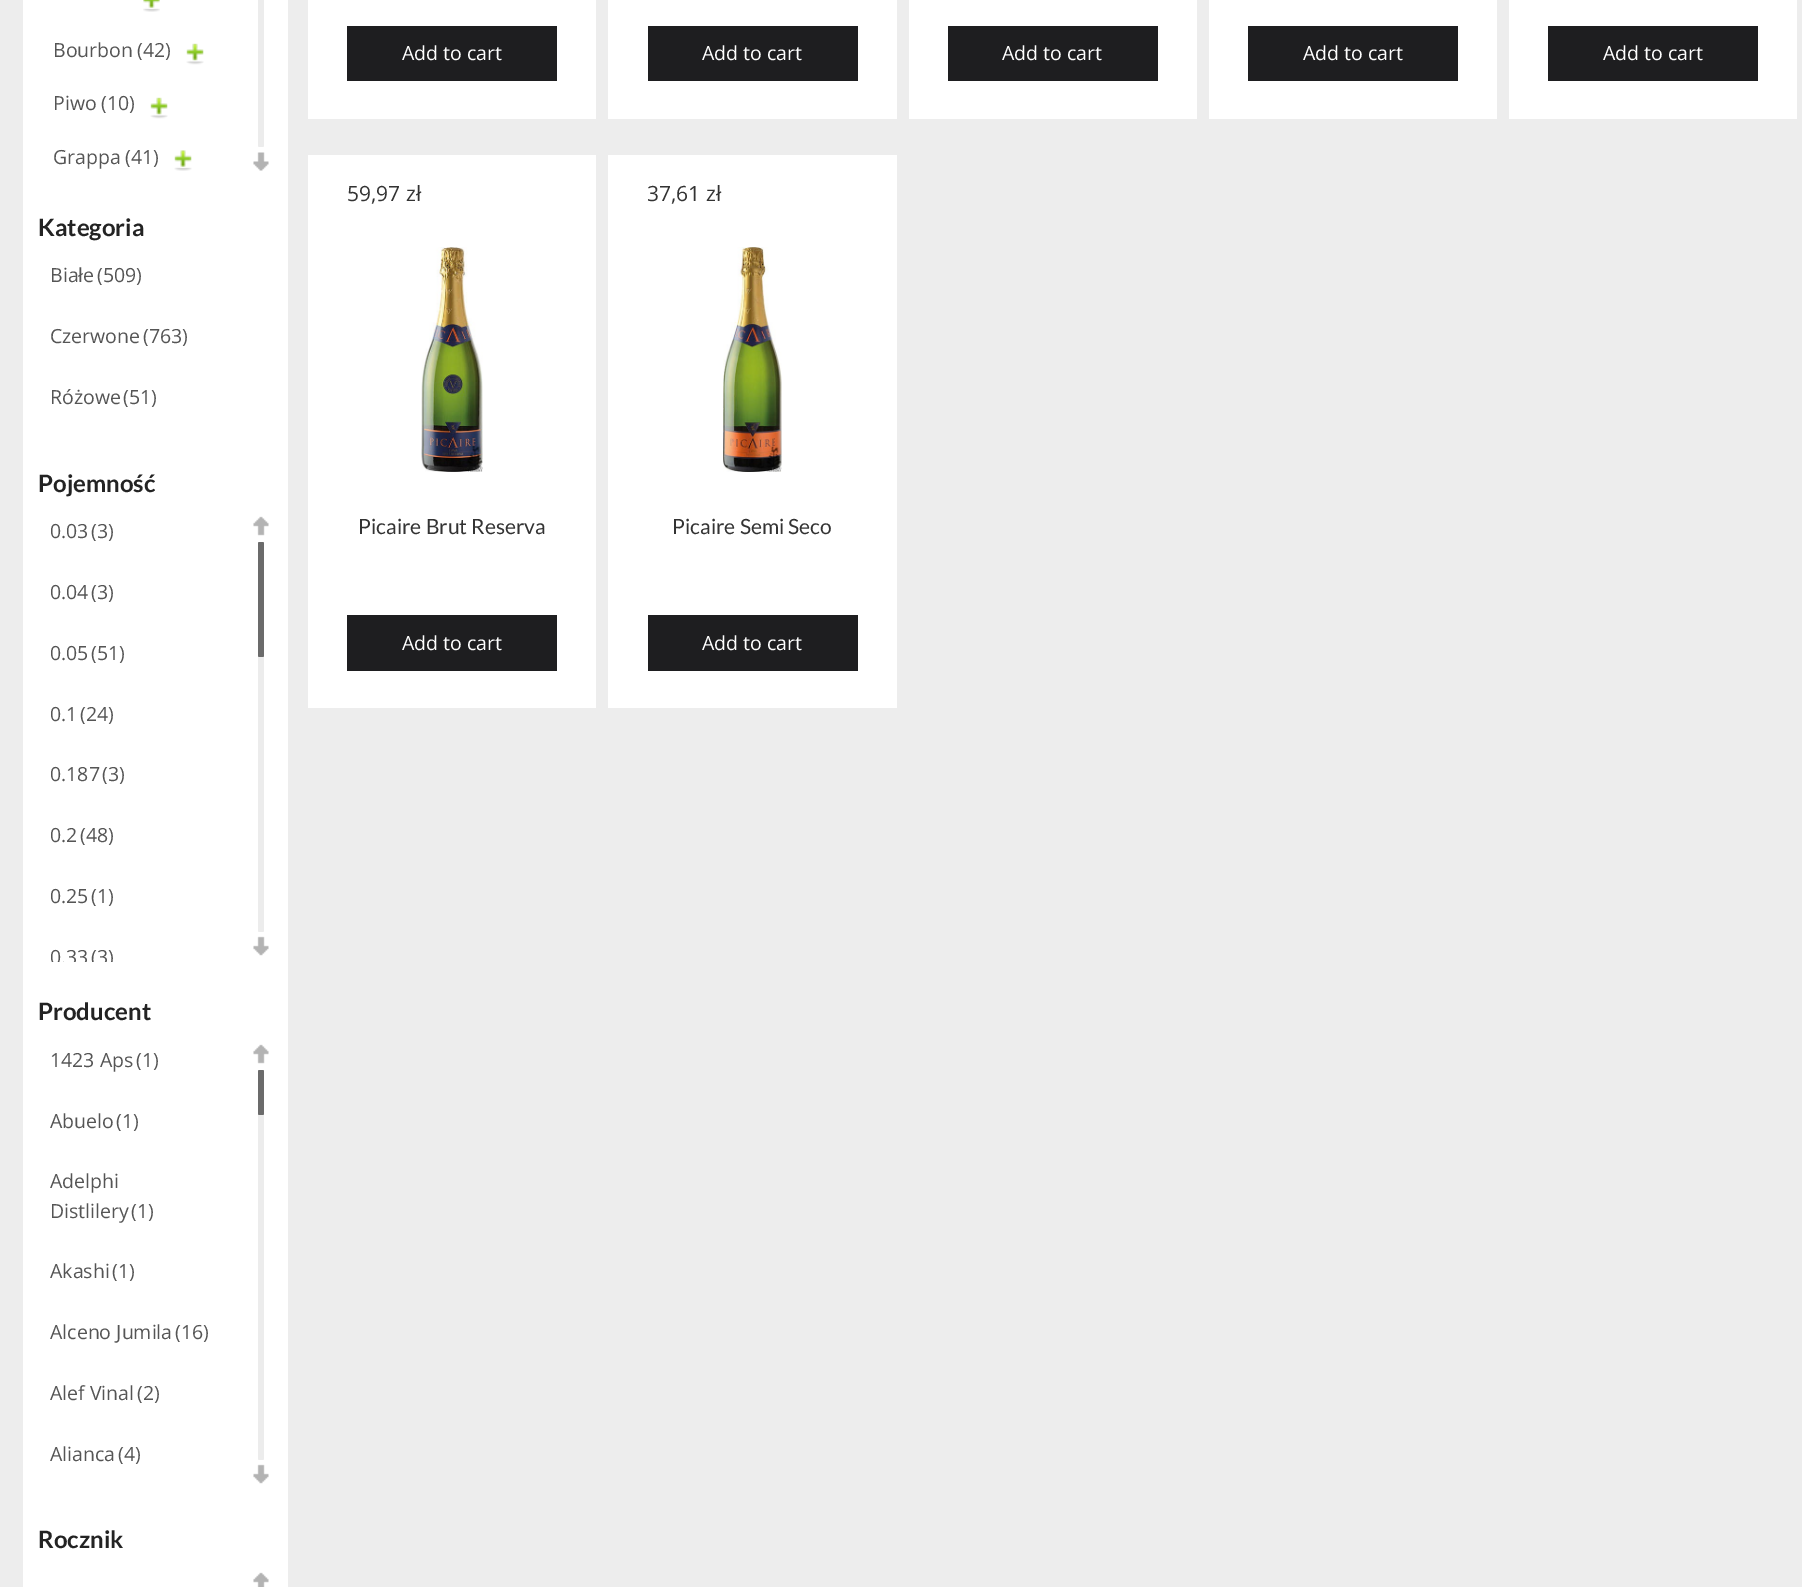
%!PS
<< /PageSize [1802 1587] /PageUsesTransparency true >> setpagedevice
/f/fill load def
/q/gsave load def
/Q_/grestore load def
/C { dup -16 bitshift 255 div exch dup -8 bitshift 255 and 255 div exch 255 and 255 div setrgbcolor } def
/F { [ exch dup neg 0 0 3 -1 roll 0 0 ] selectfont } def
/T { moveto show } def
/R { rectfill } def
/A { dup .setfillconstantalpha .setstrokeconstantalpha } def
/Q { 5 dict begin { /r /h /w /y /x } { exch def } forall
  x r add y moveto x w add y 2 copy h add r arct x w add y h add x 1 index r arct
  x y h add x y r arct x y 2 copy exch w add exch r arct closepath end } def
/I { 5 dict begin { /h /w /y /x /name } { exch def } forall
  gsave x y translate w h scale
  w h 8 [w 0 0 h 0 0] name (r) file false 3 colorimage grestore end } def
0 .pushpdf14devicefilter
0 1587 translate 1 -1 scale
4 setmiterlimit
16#EDEDED C
0 0 1802 1587 R
16#FFFFFF C
23 0 265 1587 R
(1.rgb) 143 0 17 12 I
/OpenSans-Regular 19.5 F
16#555555 C
(Bourbon) 53 57 T
(\(42\)) 137 57 T
(2.rgb) 186 43 18 22 I
(Piwo) 53 110 T
(\(10\)) 101 110 T
(2.rgb) 150 97 18 22 I
(Grappa) 53 164 T
(\(41\)) 125 164 T
(3.rgb) 174 150 18 21 I
16#ECECEC C
258 -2 6 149 1.5 Q f
(4.rgb) 253 152 16 19 I
/Lato-Bold 24 F
16#232323 C
(Kategoria) 38 236 T
/OpenSans-Regular 19.5 F
16#555555 C
(Białe) 50 282 T
(\(509\)) 97 282 T
(Czerwone) 50 343 T
(\(763\)) 143 343 T
(Różowe) 50 404 T
(\(51\)) 123 404 T
/Lato-Bold 24 F
16#232323 C
(Pojemność) 38 492 T
/OpenSans-Regular 19.5 F
16#555555 C
(0.03) 50 538 T
(\(3\)) 91 538 T
(0.04) 50 599 T
(\(3\)) 91 599 T
(0.05) 50 660 T
(\(51\)) 91 660 T
(0.1) 50 721 T
(\(24\)) 80 721 T
(0.187) 50 781 T
(\(3\)) 102 781 T
(0.2) 50 842 T
(\(48\)) 80 842 T
(0.25) 50 903 T
(\(1\)) 91 903 T
q
38 512 190 450 rectclip
(0.33) 50 964 T
(\(3\)) 91 964 T
Q_
(5.rgb) 253 516 16 20 I
16#ECECEC C
258 542 6 390 1.5 Q f
0.75 A
16#404040 C
258 542 6 115 1.5 Q f
1 A
(6.rgb) 253 936 16 20 I
/Lato-Bold 24 F
16#232323 C
(Producent) 38 1020 T
/OpenSans-Regular 19.5 F
16#555555 C
(1423 Aps) 50 1067 T
(\(1\)) 136 1067 T
(Abuelo) 50 1128 T
(\(1\)) 116 1128 T
(Adelphi) 50 1188 T
(Distlilery) 50 1218 T
(\(1\)) 131 1218 T
(Akashi) 50 1278 T
(\(1\)) 112 1278 T
(Alceno Jumila) 50 1339 T
(\(16\)) 175 1339 T
(Alef Vinal) 50 1400 T
(\(2\)) 137 1400 T
(Alianca) 50 1461 T
(\(4\)) 118 1461 T
(5.rgb) 253 1044 16 20 I
16#ECECEC C
258 1070 6 390 1.5 Q f
0.75 A
16#404040 C
258 1070 6 45 1.5 Q f
1 A
(6.rgb) 253 1464 16 20 I
/Lato-Bold 24 F
16#232323 C
(Rocznik) 38 1548 T
(7.rgb) 253 1572 16 15 I
16#FFFFFF C
308 0 288 119 R
16#1E1E20 C
347 26 210 55 R
/OpenSans-Regular 19.5 F
16#FFFFFF C
(Add to cart) 402 60 T
608 0 289 119 R
16#1E1E20 C
648 26 210 55 R
16#FFFFFF C
(Add to cart) 702 60 T
909 0 288 119 R
16#1E1E20 C
948 26 210 55 R
16#FFFFFF C
(Add to cart) 1002 60 T
1209 0 288 119 R
16#1E1E20 C
1248 26 210 55 R
16#FFFFFF C
(Add to cart) 1303 60 T
1509 0 288 119 R
16#1E1E20 C
1548 26 210 55 R
16#FFFFFF C
(Add to cart) 1603 60 T
308 155 288 553 R
/OpenSans-Regular 21 F
16#333333 C
(59,97 zł) 347 201 T
(8.rgb) 421 247 62 225 I
/Lato-Regular 21 F
(Picaire Brut Reserva) 358 534 T
16#1E1E20 C
347 615 210 56 R
/OpenSans-Regular 19.5 F
16#FFFFFF C
(Add to cart) 402 650 T
608 155 289 553 R
/OpenSans-Regular 21 F
16#333333 C
(37,61 zł) 647 201 T
(9.rgb) 723 247 59 225 I
/Lato-Regular 21 F
(Picaire Semi Seco) 672 534 T
16#1E1E20 C
648 615 210 56 R
/OpenSans-Regular 19.5 F
16#FFFFFF C
(Add to cart) 702 650 T
.poppdf14devicefilter showpage
